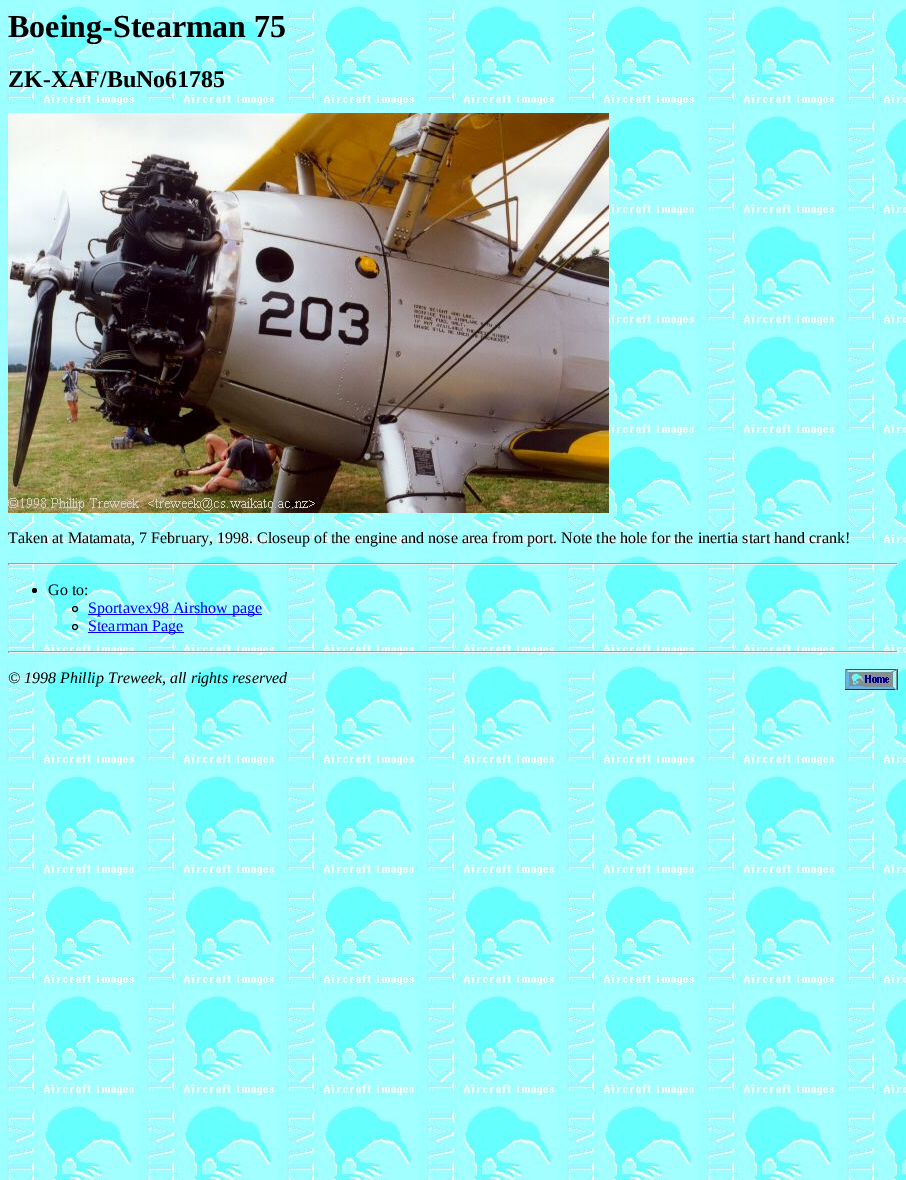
%!PS
<< /PageSize [906 1180] >> setpagedevice
/f/fill load def
/s/stroke load def
/C { dup -16 bitshift 255 div exch dup -8 bitshift 255 and 255 div exch 255 and 255 div setrgbcolor } def
/F { [ exch dup neg 0 0 3 -1 roll 0 0 ] selectfont } def
/T { moveto show } def
/R { rectfill } def
/O { newpath 0 360 arc closepath } def
/I { 5 dict begin { /h /w /y /x /name } { exch def } forall
  gsave x y translate w h scale
  w h 8 [w 0 0 h 0 0] name (r) file false 3 colorimage grestore end } def
0 1180 translate 1 -1 scale
4 setmiterlimit
16#FFFFFF C
0 0 906 1180 R
(1.rgb) 0 0 906 1180 I
/LiberationSerif-Bold 32 F
16#000000 C
(Boeing-Stearman 75) 8 37 T
/LiberationSerif-Bold 24 F
(ZK-XAF/BuNo61785) 8 87 T
(2.rgb) 8 113 601 400 I
/LiberationSerif-Regular 16 F
(Taken at Matamata, 7 February, 1998. Closeup of the engine and nose area from port. Note the hole for the inertia start hand crank!) 8 543 T
16#9F9F9F C
8 563 890 1 R
16#EEEEEE C
897 563 1 2 R
8 564 890 1 R
16#9F9F9F C
8 563 1 2 R
16#000000 C
34.5 590.5 2.5 O f
(Go to:) 48 595 T
75 609 2.5 O s
16#0000EE C
88 614 174 1 R
(Sportavex98 Airshow page) 88 613 T
16#000000 C
75 627 2.5 O s
16#0000EE C
88 632 96 1 R
(Stearman Page) 88 631 T
16#9F9F9F C
8 651 890 1 R
16#EEEEEE C
897 651 1 2 R
8 652 890 1 R
16#9F9F9F C
8 651 1 2 R
/LiberationSerif-Italic 16 F
16#000000 C
(© 1998 Phillip Treweek, all rights reserved) 8 683 T
(3.rgb) 845 669 53 21 I
showpage
